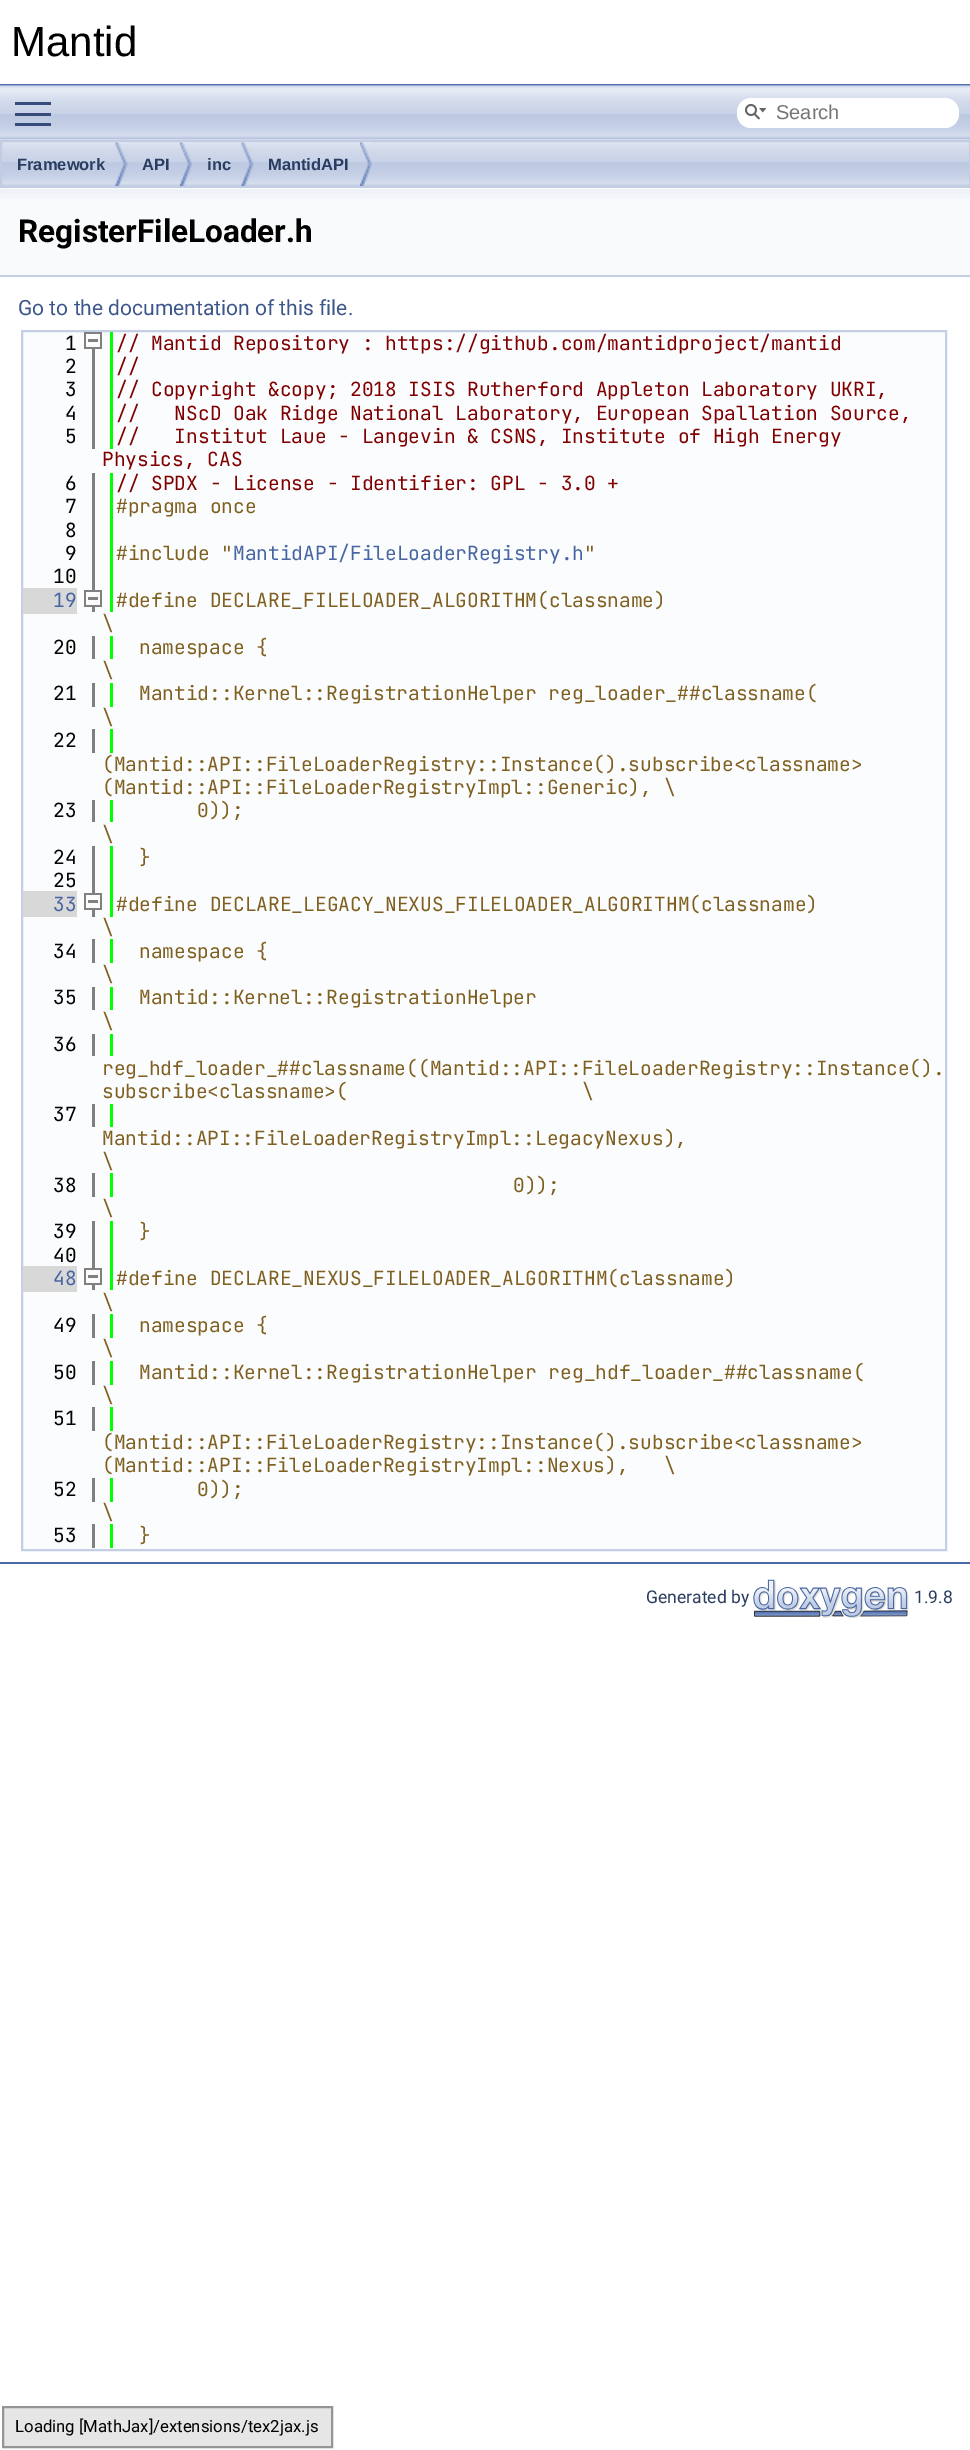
%!PS
<< /PageSize [970 2450] >> setpagedevice
/m/moveto load def
/l/rlineto load def
/z/closepath load def
/f/fill load def
/s/stroke load def
/q/gsave load def
/Q_/grestore load def
/w/setlinewidth load def
/C { dup -16 bitshift 255 div exch dup -8 bitshift 255 and 255 div exch 255 and 255 div setrgbcolor } def
/F { [ exch dup neg 0 0 3 -1 roll 0 0 ] selectfont } def
/T { moveto show } def
/R { rectfill } def
/Q { 5 dict begin { /r /h /w /y /x } { exch def } forall
  x r add y moveto x w add y 2 copy h add r arct x w add y h add x 1 index r arct
  x y h add x y r arct x y 2 copy exch w add exch r arct closepath end } def
/I { 5 dict begin { /h /w /y /x /name } { exch def } forall
  gsave x y translate w h scale
  w h 8 [w 0 0 h 0 0] name (r) file false 3 colorimage grestore end } def
0 2450 translate 1 -1 scale
4 setmiterlimit
16#FFFFFF C
0 0 970 2450 R
16#5373B4 C
0 84 970 2 R
/LiberationSans-Regular 42 F
16#000000 C
(Mantid) 11 56 T
(3.rgb) 0 139 970 47 I
(1.rgb) 0 85 970 55 I
16#364D7C C
15 113 36 3 R
15 102 36 3 R
15 123 36 3 R
16#FFFFFF C
737 98 222 30 14 Q f
(2.rgb) 745 104 22 16 I
/LiberationSans-Regular 20 F
16#757575 C
(Search) 776 119 T
16#C2CDE4 C
2 w
1 141 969 46 rectstroke
(4.rgb) 115 142 13 44 I
/LiberationSans-Bold 16.5 F
16#2A3D61 C
(Framework) 17 170 T
(5.rgb) 180 142 12 44 I
(API) 142 170 T
(4.rgb) 241 142 13 44 I
(inc) 207 170 T
(6.rgb) 360 142 12 44 I
(MantidAPI) 268 170 T
16#F9FAFC C
0 188 970 87 R
(7.rgb) 0 189 970 10 I
16#C4CFE5 C
0 275 970 2 R
/Roboto-Bold 31.5 F
16#000000 C
(RegisterFileLoader.h) 18 242 T
/Roboto-Regular 21 F
16#3D578C C
(Go to the documentation of this file.) 18 315 T
16#FBFCFD C
22 331 m 924 0 l 0 1219 l -924 0 l z q f Q_
16#C4CFE5 C
s
16#808080 C
92 349 3 100 R
16#00FF00 C
110 332 3 117 R
/JetBrainsMono-Regular 19.5 F
16#000000 C
(1) 65 350 T
16#808080 C
84 332 18 17 R
16#FCFCFC C
86 334 14 13 R
16#808080 C
88 339 10 3 R
16#800000 C
(// Mantid Repository : https://github.com/mantidproject/mantid) 116 350 T
16#000000 C
(2) 65 373 T
16#800000 C
(//) 116 373 T
16#000000 C
(3) 65 396 T
16#800000 C
(// Copyright &copy; 2018 ISIS Rutherford Appleton Laboratory UKRI,) 116 396 T
16#000000 C
(4) 65 420 T
16#800000 C
(//   NScD Oak Ridge National Laboratory, European Spallation Source,) 116 420 T
16#000000 C
(5) 65 443 T
16#800000 C
(//   Institut Laue - Langevin & CSNS, Institute of High Energy) 116 443 T
(Physics, CAS) 102 466 T
16#808080 C
92 473 3 117 R
16#00FF00 C
110 473 3 139 R
16#000000 C
(6) 65 490 T
16#800000 C
(// SPDX - License - Identifier: GPL - 3.0 +) 116 490 T
16#000000 C
(7) 65 513 T
16#806020 C
(#pragma once) 116 513 T
16#000000 C
(8) 65 537 T
(9) 65 560 T
16#806020 C
(#include ") 116 560 T
16#4665A2 C
(MantidAPI/FileLoaderRegistry.h) 233 560 T
16#806020 C
(") 584 560 T
16#000000 C
(10) 53 583 T
16#808080 C
92 607 3 5 R
16#D8D8D8 C
23 588 54 26 R
16#4665A2 C
(19) 53 607 T
16#808080 C
84 590 18 17 R
16#FCFCFC C
86 592 14 13 R
16#808080 C
88 597 10 3 R
16#806020 C
(#define DECLARE_FILELOADER_ALGORITHM\(classname\)) 116 607 T
(\\) 102 630 T
16#808080 C
92 636 3 23 R
16#00FF00 C
110 636 3 23 R
16#000000 C
(20) 53 654 T
16#806020 C
(namespace {) 139 654 T
(\\) 102 677 T
16#808080 C
92 683 3 24 R
16#00FF00 C
110 683 3 24 R
16#000000 C
(21) 53 700 T
16#806020 C
(Mantid::Kernel::RegistrationHelper reg_loader_##classname\() 139 700 T
(\\) 102 724 T
16#808080 C
92 729 3 24 R
16#00FF00 C
110 729 3 24 R
16#000000 C
(22) 53 747 T
16#806020 C
(\(Mantid::API::FileLoaderRegistry::Instance\(\).subscribe<classname>) 102 771 T
(\(Mantid::API::FileLoaderRegistryImpl::Generic\), \\) 102 794 T
16#808080 C
92 800 3 22 R
16#00FF00 C
110 800 3 22 R
16#000000 C
(23) 53 817 T
16#806020 C
(0\)\);) 197 817 T
(\\) 102 841 T
16#808080 C
92 846 3 47 R
16#00FF00 C
110 846 3 71 R
16#000000 C
(24) 53 864 T
16#806020 C
(}) 139 864 T
16#000000 C
(25) 53 887 T
16#808080 C
92 910 3 7 R
16#D8D8D8 C
23 891 54 26 R
16#4665A2 C
(33) 53 911 T
16#808080 C
84 893 18 17 R
16#FCFCFC C
86 895 14 13 R
16#808080 C
88 900 10 3 R
16#806020 C
(#define DECLARE_LEGACY_NEXUS_FILELOADER_ALGORITHM\(classname\)) 116 911 T
(\\) 102 934 T
16#808080 C
92 939 3 24 R
16#00FF00 C
110 939 3 24 R
16#000000 C
(34) 53 958 T
16#806020 C
(namespace {) 139 958 T
(\\) 102 981 T
16#808080 C
92 987 3 23 R
16#00FF00 C
110 987 3 23 R
16#000000 C
(35) 53 1004 T
16#806020 C
(Mantid::Kernel::RegistrationHelper) 139 1004 T
(\\) 102 1028 T
16#808080 C
92 1034 3 22 R
16#00FF00 C
110 1034 3 22 R
16#000000 C
(36) 53 1051 T
16#806020 C
(reg_hdf_loader_##classname\(\(Mantid::API::FileLoaderRegistry::Instance\(\).) 102 1075 T
(subscribe<classname>\(                    \\) 102 1098 T
16#808080 C
92 1104 3 23 R
16#00FF00 C
110 1104 3 23 R
16#000000 C
(37) 53 1121 T
16#806020 C
(Mantid::API::FileLoaderRegistryImpl::LegacyNexus\),) 102 1145 T
(\\) 102 1168 T
16#808080 C
92 1173 3 24 R
16#00FF00 C
110 1173 3 24 R
16#000000 C
(38) 53 1192 T
16#806020 C
(0\)\);) 513 1192 T
(\\) 102 1215 T
16#808080 C
92 1221 3 47 R
16#00FF00 C
110 1221 3 69 R
16#000000 C
(39) 53 1238 T
16#806020 C
(}) 139 1238 T
16#000000 C
(40) 53 1262 T
16#808080 C
92 1285 3 5 R
16#D8D8D8 C
23 1266 54 26 R
16#4665A2 C
(48) 53 1285 T
16#808080 C
84 1268 18 17 R
16#FCFCFC C
86 1270 14 13 R
16#808080 C
88 1275 10 3 R
16#806020 C
(#define DECLARE_NEXUS_FILELOADER_ALGORITHM\(classname\)) 116 1285 T
(\\) 102 1309 T
16#808080 C
92 1314 3 24 R
16#00FF00 C
110 1314 3 24 R
16#000000 C
(49) 53 1332 T
16#806020 C
(namespace {) 139 1332 T
(\\) 102 1355 T
16#808080 C
92 1361 3 24 R
16#00FF00 C
110 1361 3 24 R
16#000000 C
(50) 53 1379 T
16#806020 C
(Mantid::Kernel::RegistrationHelper reg_hdf_loader_##classname\() 139 1379 T
(\\) 102 1402 T
16#808080 C
92 1407 3 24 R
16#00FF00 C
110 1407 3 24 R
16#000000 C
(51) 53 1425 T
16#806020 C
(\(Mantid::API::FileLoaderRegistry::Instance\(\).subscribe<classname>) 102 1449 T
(\(Mantid::API::FileLoaderRegistryImpl::Nexus\),   \\) 102 1472 T
16#808080 C
92 1478 3 24 R
16#00FF00 C
110 1478 3 24 R
16#000000 C
(52) 53 1496 T
16#806020 C
(0\)\);) 197 1496 T
(\\) 102 1519 T
16#808080 C
92 1524 3 24 R
16#00FF00 C
110 1524 3 24 R
16#000000 C
(53) 53 1542 T
16#806020 C
(}) 139 1542 T
16#4A6AAA C
0 1562 970 2 R
/Roboto-Regular 17.5 F
16#2A3D61 C
(Generated by) 646 1603 T
(8.rgb) 753 1579 156 40 I
(1.9.8) 914 1603 T
16#E6E6E6 C
3 2407 m 329 0 l 0 40 l -329 0 l z q f Q_
16#959595 C
s
/Roboto-Regular 16.75 F
16#000000 C
(Loading [MathJax]/extensions/tex2jax.js) 15 2432 T
showpage
